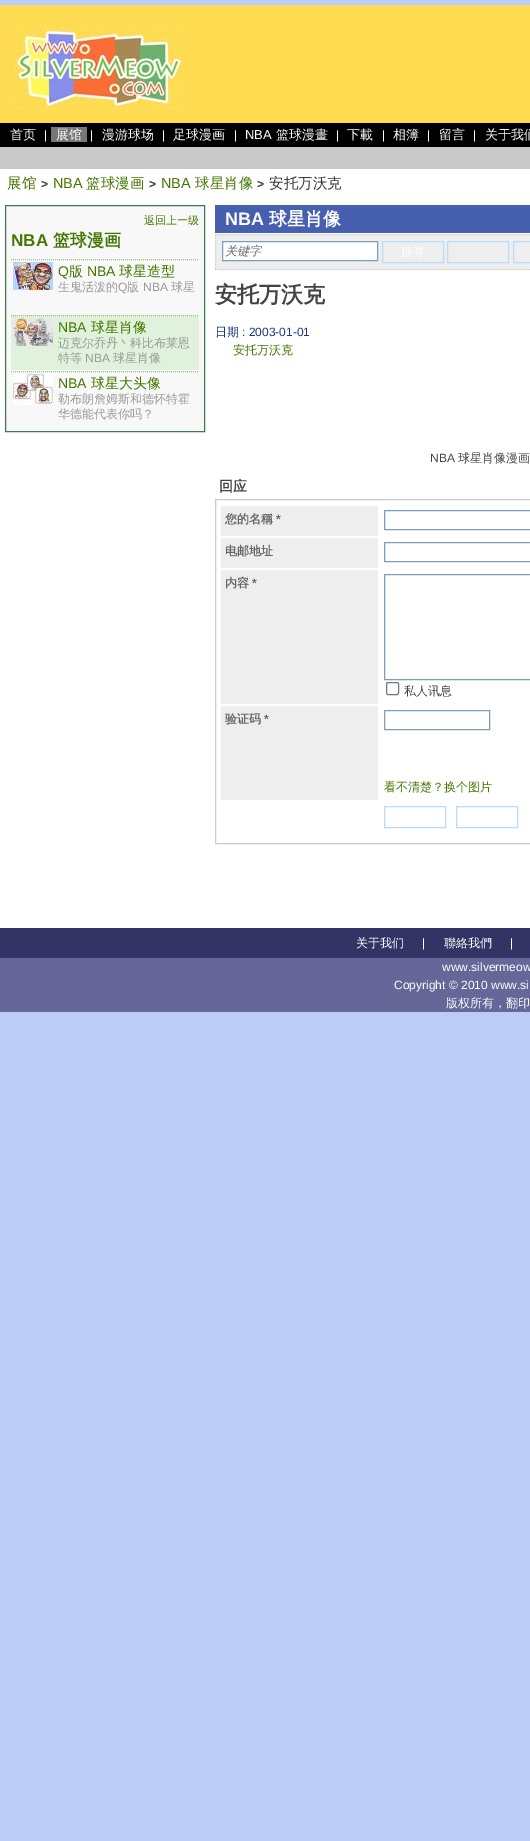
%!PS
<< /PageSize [530 1841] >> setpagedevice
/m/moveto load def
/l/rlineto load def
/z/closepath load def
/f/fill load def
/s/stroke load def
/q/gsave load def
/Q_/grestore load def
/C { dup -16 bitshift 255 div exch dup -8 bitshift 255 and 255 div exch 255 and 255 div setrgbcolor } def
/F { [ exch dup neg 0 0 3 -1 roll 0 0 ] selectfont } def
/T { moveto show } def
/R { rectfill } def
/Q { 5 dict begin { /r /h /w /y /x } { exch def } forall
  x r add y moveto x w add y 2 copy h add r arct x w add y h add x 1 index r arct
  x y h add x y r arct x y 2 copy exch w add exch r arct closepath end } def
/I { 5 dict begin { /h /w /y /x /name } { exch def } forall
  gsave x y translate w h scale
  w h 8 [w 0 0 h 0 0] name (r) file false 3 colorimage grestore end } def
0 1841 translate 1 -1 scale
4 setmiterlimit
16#BCCCF7 C
0 0 530 1841 R
16#FFDC52 C
0 5 530 118 R
(1.rgb) 15 29 169 80 I
16#000000 C
0 123 530 24 R
/WenQuanYiZenHei-Medium 13 F
16#FFFFFF C
(首页) 10 139 T
/LiberationSans-Regular 12 F
(|) 44 139 T
16#777777 C
51 127 36 15 R
/WenQuanYiZenHei-Medium 13 F
16#FFFFFF C
(展馆) 56 139 T
/LiberationSans-Regular 12 F
(|) 90 139 T
/WenQuanYiZenHei-Medium 13 F
(漫游球场) 102 139 T
/LiberationSans-Regular 12 F
(|) 162 139 T
/WenQuanYiZenHei-Medium 13 F
(足球漫画) 173 139 T
/LiberationSans-Regular 12 F
(|) 234 139 T
/LiberationSans-Regular 13 F
(NBA) 245 139 T
/WenQuanYiZenHei-Medium 13 F
(篮球漫畫) 276 139 T
/LiberationSans-Regular 12 F
(|) 336 139 T
/WenQuanYiZenHei-Medium 13 F
(下載) 347 139 T
/LiberationSans-Regular 12 F
(|) 382 139 T
/WenQuanYiZenHei-Medium 13 F
(相簿) 393 139 T
/LiberationSans-Regular 12 F
(|) 427 139 T
/WenQuanYiZenHei-Medium 13 F
(留言) 439 139 T
/LiberationSans-Regular 12 F
(|) 473 139 T
/WenQuanYiZenHei-Medium 13 F
(关于我们) 485 139 T
16#C9C9C9 C
0 147 530 22 R
16#FFFFFF C
0 169 530 759 R
/WenQuanYiZenHei-Medium 14.5 F
16#447700 C
(展馆) 7 188 T
/LiberationSans-Bold 12 F
16#333333 C
(>) 41 188 T
/LiberationSans-Regular 14.5 F
16#447700 C
(NBA) 53 188 T
/WenQuanYiZenHei-Medium 14.5 F
(篮球漫画) 86 188 T
/LiberationSans-Bold 12 F
16#333333 C
(>) 149 188 T
/LiberationSans-Regular 14.5 F
16#447700 C
(NBA) 161 188 T
/WenQuanYiZenHei-Medium 14.5 F
(球星肖像) 195 188 T
/LiberationSans-Bold 12 F
16#333333 C
(>) 257 188 T
/WenQuanYiZenHei-Medium 14.5 F
(安托万沃克) 269 188 T
16#F8F8F8 C
5.5 205.5 m 199 0 l 0 226 l -199 0 l z q f Q_
16#3D7A4C C
s
/WenQuanYiZenHei-Medium 11 F
16#447700 C
(返回上一级) 144 224 T
/LiberationSans-Bold 17 F
(NBA) 11 246 T
/WenQuanYiZenHei-Bold 17 F
(篮球漫画) 53 246 T
16#99C28E C
[1 1] 0 setdash
11 259.5 m 188 0 l s
(2.rgb) 13 262 40 28 I
/LiberationSans-Regular 14 F
16#447700 C
(Q) 58 276 T
/WenQuanYiZenHei-Medium 14 F
(版) 69 276 T
/LiberationSans-Regular 14 F
(NBA) 87 276 T
/WenQuanYiZenHei-Medium 14 F
(球星造型) 119 276 T
/WenQuanYiZenHei-Medium 12 F
16#999999 C
(生鬼活泼的) 58 291 T
/LiberationSans-Regular 12 F
(Q) 118 291 T
/WenQuanYiZenHei-Medium 12 F
(版) 127 291 T
/LiberationSans-Regular 12 F
(NBA) 143 291 T
/WenQuanYiZenHei-Medium 12 F
(球星) 171 291 T
16#E0F2DB C
11 315 188 55 R
16#99C28E C
11 315.5 m 188 0 l s
(3.rgb) 13 318 40 28 I
/LiberationSans-Regular 14 F
16#447700 C
(NBA) 58 332 T
/WenQuanYiZenHei-Medium 14 F
(球星肖像) 91 332 T
/WenQuanYiZenHei-Medium 12 F
16#999999 C
(迈克尔乔丹丶科比布莱恩) 58 347 T
(特等) 58 362 T
/LiberationSans-Regular 12 F
(NBA) 85 362 T
/WenQuanYiZenHei-Medium 12 F
(球星肖像) 113 362 T
16#99C28E C
11 371.5 m 188 0 l s
(4.rgb) 13 374 40 31 I
/LiberationSans-Regular 14 F
16#447700 C
(NBA) 58 388 T
/WenQuanYiZenHei-Medium 14 F
(球星大头像) 91 388 T
/WenQuanYiZenHei-Medium 12 F
16#999999 C
(勒布朗詹姆斯和德怀特霍) 58 403 T
(华德能代表你吗？) 58 418 T
16#465FAE C
215 205 315 28 R
/LiberationSans-Bold 18 F
16#FFFFFF C
(NBA) 225 225 T
/WenQuanYiZenHei-Bold 18 F
(球星肖像) 269 225 T
16#EEEEEE C
215 234 315 36 R
16#CCCCCC C
215 234.5 m 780 0 l s
215 269.5 m 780 0 l s
215.5 234 m 0 36 l s
16#FFFFFF C
222.5 241.5 m 155 0 l 0 19 l -155 0 l z q f Q_
16#7F9DB9 C
[] 0 setdash
s
/WenQuanYiZenHei-MediumItalic 12 F
16#666666 C
(关键字) 225 255 T
16#B8DCFF C
382.5 241.5 61 21 rectstroke
/WenQuanYiZenHei-Medium 12 F
16#FFFFFF C
(搜寻) 401 256 T
16#B8DCFF C
447.5 241.5 61 21 rectstroke
513.5 241.5 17 21 rectstroke
/WenQuanYiZenHei-Bold 22 F
16#444444 C
(安托万沃克) 215 302 T
/WenQuanYiZenHei-Medium 12 F
16#1A387B C
(日期) 215 336 T
/LiberationSans-Regular 12 F
(: 2003-01-01) 242 336 T
/WenQuanYiZenHei-Medium 12 F
16#447700 C
(安托万沃克) 233 354 T
/LiberationSans-Regular 12 F
16#444444 C
(NBA) 430 462 T
/WenQuanYiZenHei-Medium 12 F
(球星肖像漫画) 458 462 T
/WenQuanYiZenHei-Bold 14 F
(回应) 219 491 T
16#CCCCCC C
215.5 499.5 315 344 rectstroke
16#EEEEEE C
221 506 157 30 R
/WenQuanYiZenHei-Bold 12 F
16#666666 C
(您的名稱) 225 523 T
/LiberationSans-Bold 12 F
(*) 276 523 T
16#7F9DB9 C
384.5 510.5 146 19 rectstroke
16#EEEEEE C
221 538 157 30 R
/WenQuanYiZenHei-Bold 12 F
16#666666 C
(电邮地址) 225 555 T
16#7F9DB9 C
384.5 542.5 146 19 rectstroke
16#EEEEEE C
221 570 157 134 R
16#666666 C
(内容) 225 587 T
/LiberationSans-Bold 12 F
(*) 252 587 T
16#7F9DB9 C
384.5 574.5 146 105 rectstroke
16#767676 C
386.5 682.5 12 12 1.5 Q s
/WenQuanYiZenHei-Medium 12 F
16#444444 C
(私人讯息) 404 695 T
16#EEEEEE C
221 706 157 94 R
/WenQuanYiZenHei-Bold 12 F
16#666666 C
(验证码) 225 723 T
/LiberationSans-Bold 12 F
(*) 264 723 T
16#7F9DB9 C
384.5 710.5 105 19 rectstroke
/WenQuanYiZenHei-Medium 12 F
16#447700 C
(看不清楚？换个图片) 384 791 T
16#B8DCFF C
384.5 806.5 61 21 rectstroke
456.5 806.5 61 21 rectstroke
16#666699 C
0 958 530 54 R
16#333366 C
0 928 530 30 R
16#FFFFFF C
(关于我们) 356 947 T
/LiberationSans-Regular 12 F
(|) 422 947 T
/WenQuanYiZenHei-Medium 12 F
(聯絡我們) 444 947 T
/LiberationSans-Regular 12 F
(|) 510 947 T
(www.silvermeow) 442 971 T
(Copyright © 2010 www.si) 394 989 T
/WenQuanYiZenHei-Medium 12 F
(版权所有，翻印) 446 1007 T
showpage
